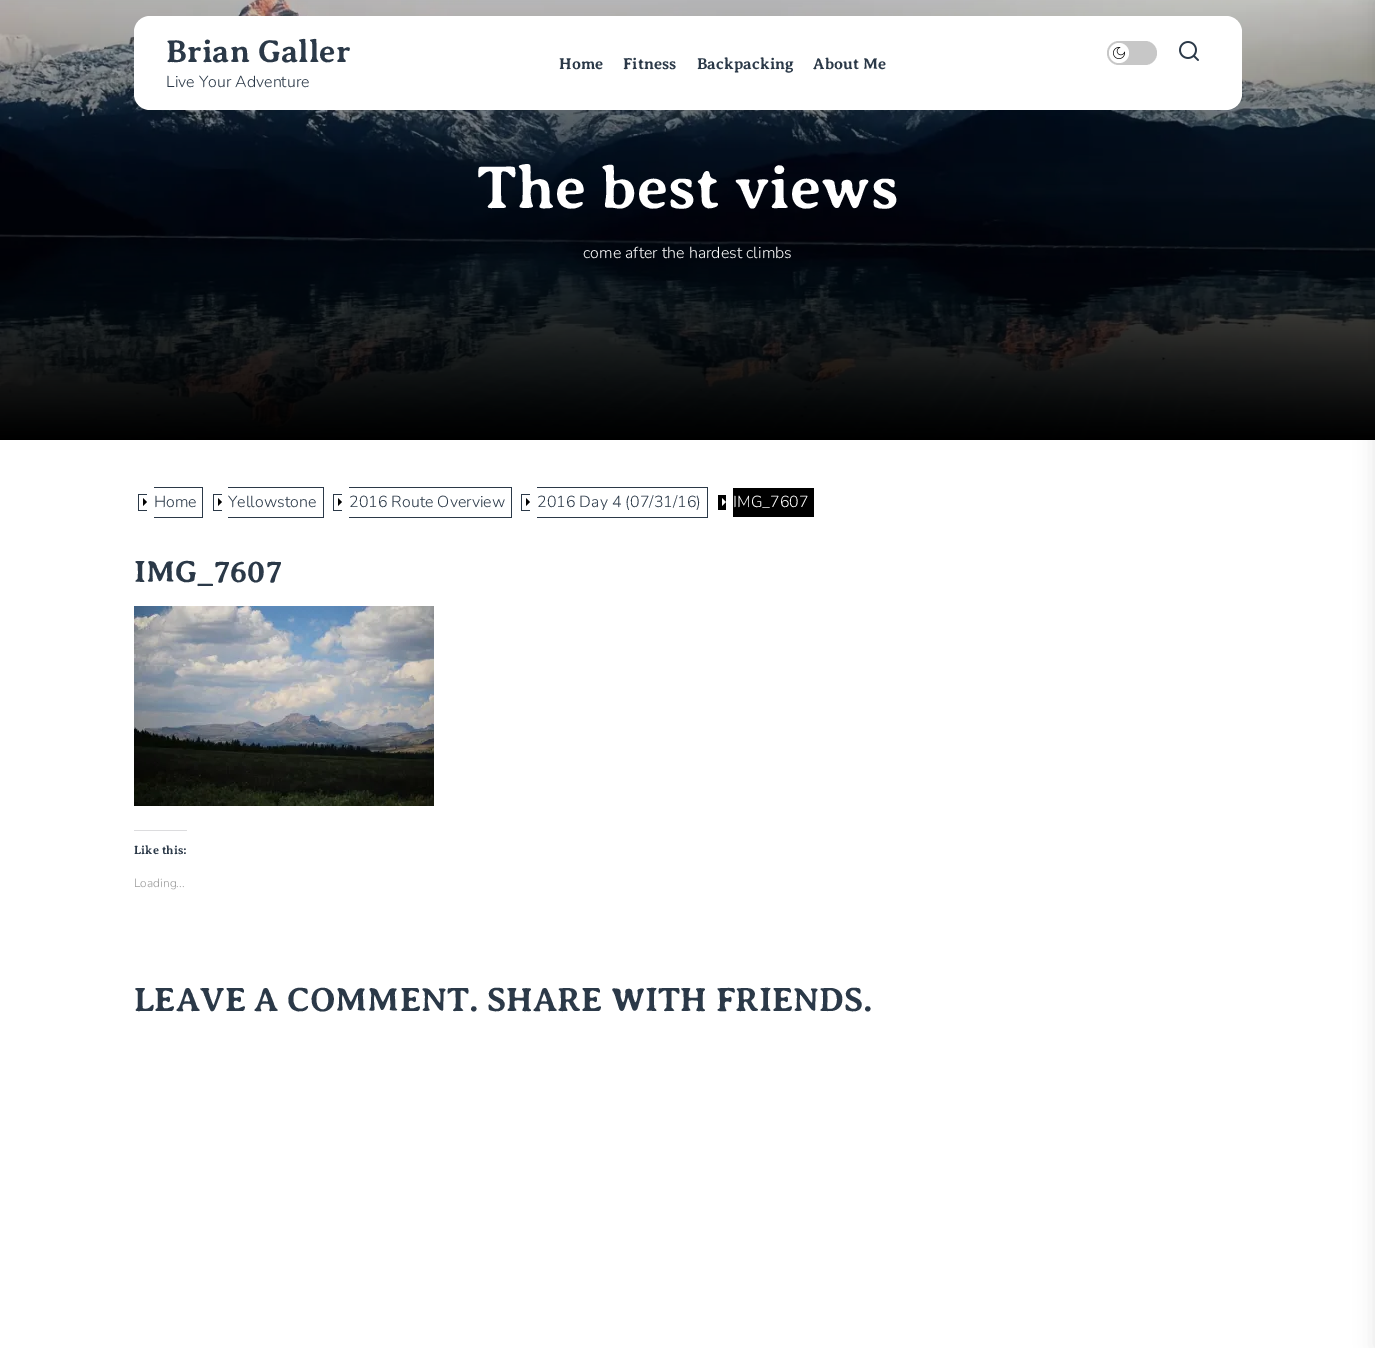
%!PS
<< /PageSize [1375 1348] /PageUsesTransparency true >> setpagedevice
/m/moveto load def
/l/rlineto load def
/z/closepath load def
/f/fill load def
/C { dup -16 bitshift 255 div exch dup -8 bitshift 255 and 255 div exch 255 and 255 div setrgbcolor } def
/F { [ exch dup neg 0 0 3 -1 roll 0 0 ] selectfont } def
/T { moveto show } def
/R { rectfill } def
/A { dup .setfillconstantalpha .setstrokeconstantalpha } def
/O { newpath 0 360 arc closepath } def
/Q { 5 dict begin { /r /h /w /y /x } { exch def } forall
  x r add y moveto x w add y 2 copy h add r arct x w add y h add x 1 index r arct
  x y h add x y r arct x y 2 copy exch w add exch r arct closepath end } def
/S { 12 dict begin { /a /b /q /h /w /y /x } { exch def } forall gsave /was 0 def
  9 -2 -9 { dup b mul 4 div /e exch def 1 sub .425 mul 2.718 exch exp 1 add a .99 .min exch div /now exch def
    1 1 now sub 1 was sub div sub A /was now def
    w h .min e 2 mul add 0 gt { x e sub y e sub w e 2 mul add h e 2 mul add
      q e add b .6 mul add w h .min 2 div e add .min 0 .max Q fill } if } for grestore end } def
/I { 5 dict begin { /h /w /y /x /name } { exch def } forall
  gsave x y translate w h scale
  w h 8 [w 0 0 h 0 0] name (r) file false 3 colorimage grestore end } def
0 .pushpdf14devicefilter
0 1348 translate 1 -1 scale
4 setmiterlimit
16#FFFFFF C
0 0 1375 1348 R
(3.rgb) 0 0 1375 440 I
134 16 1108 94 16 Q f
/AveriaSerifLibre-Bold 32 F
16#2B3948 C
(Brian Galler) 166 62 T
/Nunito-Light 16 F
(Live Your Adventure) 166 87 T
/AveriaSerifLibre-Bold 16 F
(Home) 559 69 T
(Fitness) 623 69 T
(Backpacking) 697 69 T
(About Me) 813 69 T
16#C7C7C7 C
1107 41 50 24 12 Q f
16#FFFFFF C
1119 53 10 O f
(1.rgb) 1113 47 12 12 I
(2.rgb) 1179 41 20 20 I
/AveriaSerifLibre-Bold 61 F
(The best views) 477 208 T
/Nunito-Light 16 F
(come after the hardest climbs) 583 258 T
16#2B3948 C
138 494 9 1 R
138 510 9 1 R
138 494 1 17 R
154 487 49 1 R
202 487 1 31 R
154 517 49 1 R
16#000000 C
143 506 m 0 -8 l 4 4 l z f
16#2B3948 C
(Home) 154 507 T
213 494 9 1 R
213 510 9 1 R
213 494 1 17 R
228 487 96 1 R
323 487 1 31 R
228 517 96 1 R
16#000000 C
218 506 m 0 -8 l 4 4 l z f
16#2B3948 C
(Yellowstone) 228 507 T
333 494 9 1 R
333 510 9 1 R
333 494 1 17 R
349 487 163 1 R
511 487 1 31 R
349 517 163 1 R
16#000000 C
338 506 m 0 -8 l 4 4 l z f
16#2B3948 C
(2016 Route Overview) 349 507 T
521 494 9 1 R
521 510 9 1 R
521 494 1 17 R
537 487 171 1 R
707 487 1 31 R
537 517 171 1 R
16#000000 C
526 506 m 0 -8 l 4 4 l z f
16#2B3948 C
(2016 Day 4 \(07/31/16\)) 537 507 T
16#000000 C
718 495 8 15 R
733 488 81 29 R
16#FFFFFF C
722 506 m 0 -8 l 4 4 l z f
(IMG_7607) 733 507 T
/AveriaSerifLibre-Bold 31 F
16#2B3948 C
(IMG_7607) 134 582 T
(4.rgb) 134 606 300 200 I
16#DCDCDE C
134 830 53 1 R
/AveriaSerifLibre-Bold 12 F
16#2B3948 C
(Like this:) 134 854 T
/Nunito-Light 12 F
16#999999 C
(Loading...) 134 887 T
/AveriaSerifLibre-Bold 34 F
16#2B3948 C
(LEAVE A COMMENT. SHARE WITH FRIENDS.) 134 1011 T
16#000000 C
1375 0 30 1348 0 10 .1 S
.poppdf14devicefilter showpage
